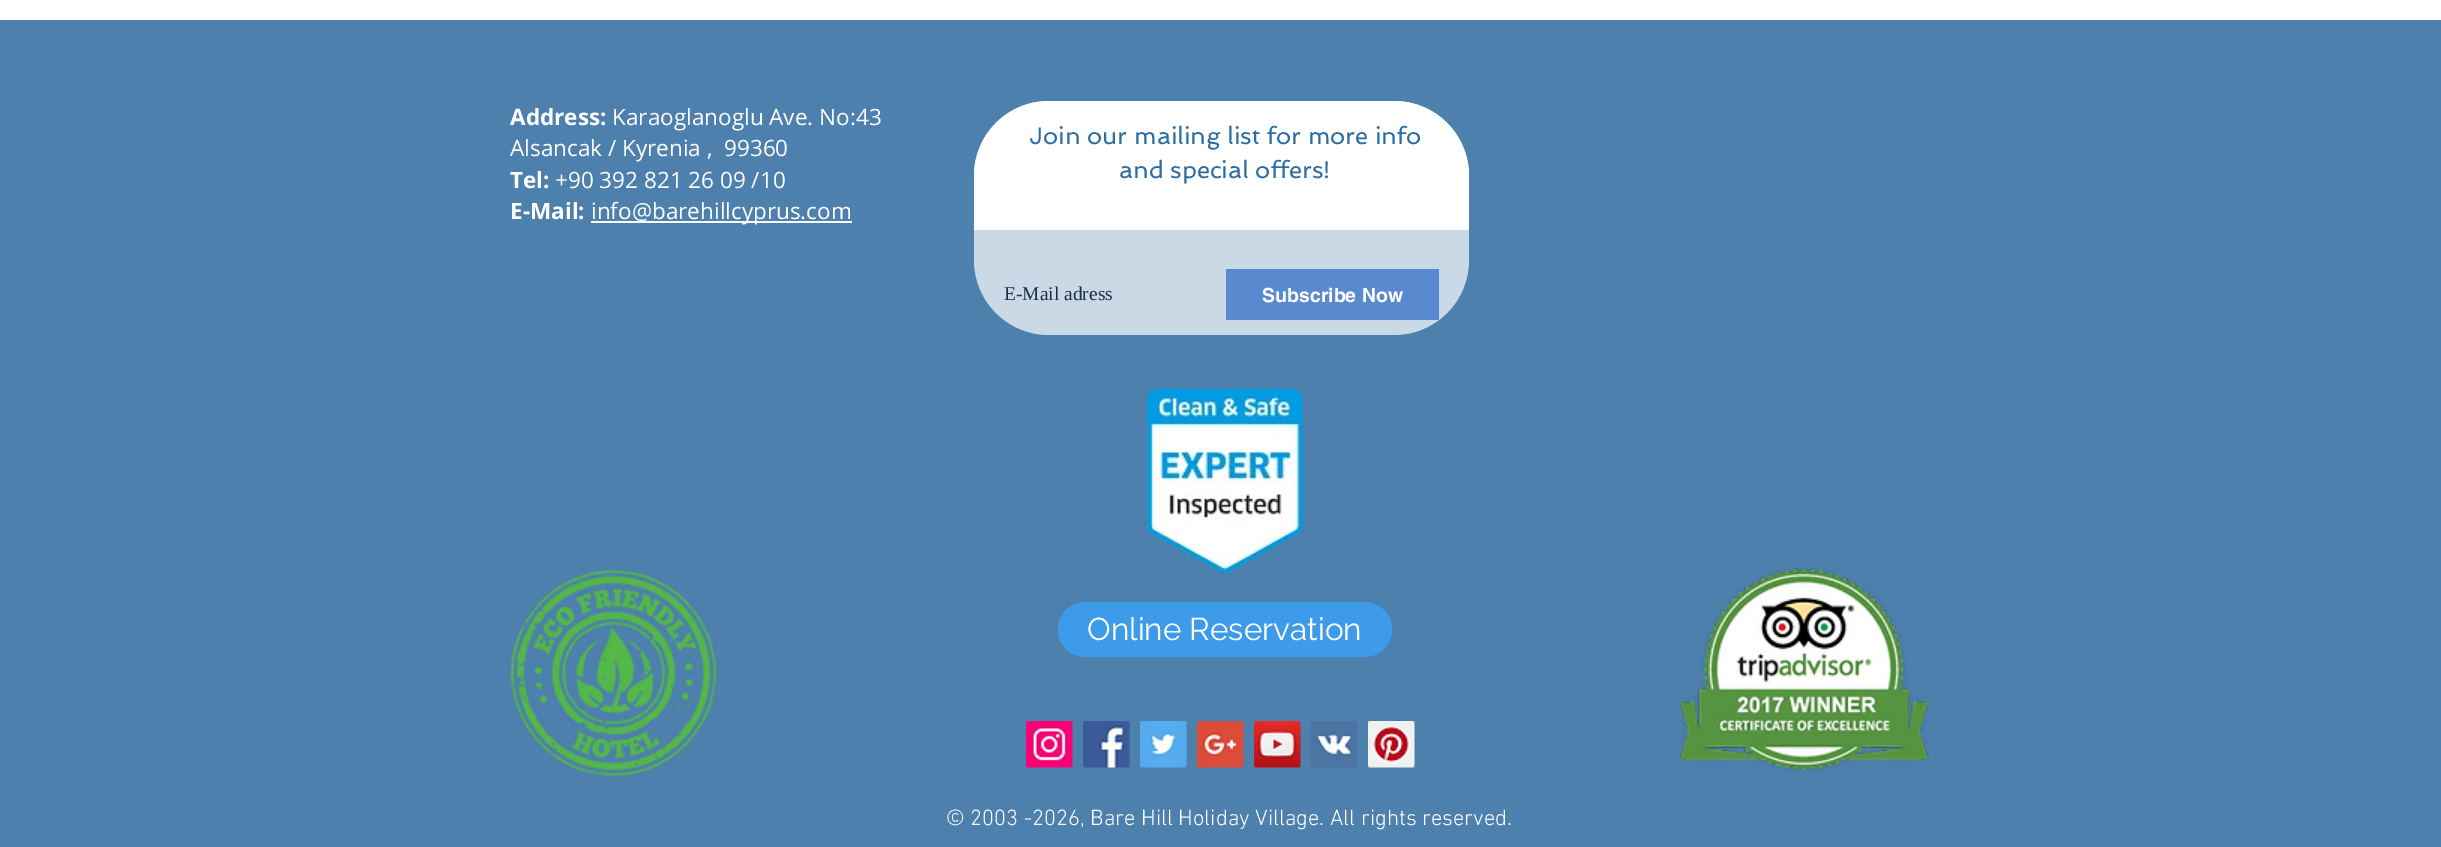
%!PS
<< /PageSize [2441 847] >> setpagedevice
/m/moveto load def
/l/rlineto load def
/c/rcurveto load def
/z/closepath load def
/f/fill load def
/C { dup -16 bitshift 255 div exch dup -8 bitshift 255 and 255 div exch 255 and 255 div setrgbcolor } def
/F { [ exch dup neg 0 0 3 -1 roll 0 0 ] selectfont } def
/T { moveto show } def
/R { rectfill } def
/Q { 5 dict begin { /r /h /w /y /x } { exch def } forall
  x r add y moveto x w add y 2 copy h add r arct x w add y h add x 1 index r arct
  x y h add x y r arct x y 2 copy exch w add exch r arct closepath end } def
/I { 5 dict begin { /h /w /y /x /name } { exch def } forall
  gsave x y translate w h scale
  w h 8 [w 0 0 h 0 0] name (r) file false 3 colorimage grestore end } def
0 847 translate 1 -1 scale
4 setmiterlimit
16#FFFFFF C
0 0 2441 847 R
16#4D80AC C
0 20 2441 827 R
/OpenSans-Bold 22.5 F
16#FFFFFF C
(Address:) 510 125 T
/OpenSans-Regular 22.5 F
(Karaoglanoglu Ave. No:43) 612 125 T
(Alsancak / Kyrenia ,  99360) 510 156 T
/OpenSans-Bold 22.5 F
(Tel:) 510 188 T
/OpenSans-Regular 22.5 F
(+90 392 821 26 09 /10) 555 188 T
/OpenSans-Bold 22.5 F
(E-Mail:) 510 219 T
591 221 261 2 R
/OpenSans-Regular 22.5 F
(info@barehillcyprus.com) 591 219 T
16#CAD9E6 C
974 101 495 234 75 Q f
16#FFFFFF C
1049 101 m 345 0 l 41.5 0 75 33.5 75 75 c 0 54 l -495 0 l 0 -54 l 0 -41.5 33.5 -75 75 -75 c z f
/Spinnaker-Regular 24 F
16#2B6CA3 C
(Join our mailing list for more info) 1029 144 T
(and special offers!) 1119 178 T
/LiberationSerif-Regular 19.5 F
16#1E2E45 C
(E-Mail adress) 1004 300 T
16#598ACF C
1226 269 213 51 R
/helvetica-Bold 19.5 F
16#FFFFFF C
(Subscribe Now) 1262 302 T
(1.rgb) 1146 387 158 187 I
(2.rgb) 510 569 207 208 I
16#3D9BE9 C
1058 602 334 55 27.5 Q f
/Raleway-Regular 31.5 F
16#FFFFFF C
(Online Reservation) 1087 640 T
(3.rgb) 1678 567 252 205 I
(4.rgb) 1026 721 47 47 I
(5.rgb) 1083 721 47 47 I
(6.rgb) 1140 721 47 47 I
(7.rgb) 1197 721 47 47 I
(8.rgb) 1254 721 47 47 I
(9.rgb) 1311 721 47 47 I
(10.rgb) 1368 721 47 47 I
/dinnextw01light-Light 22.5 F
(© 2003 -2026, Bare Hill Holiday Village. All rights reserved.) 946 825 T
showpage
